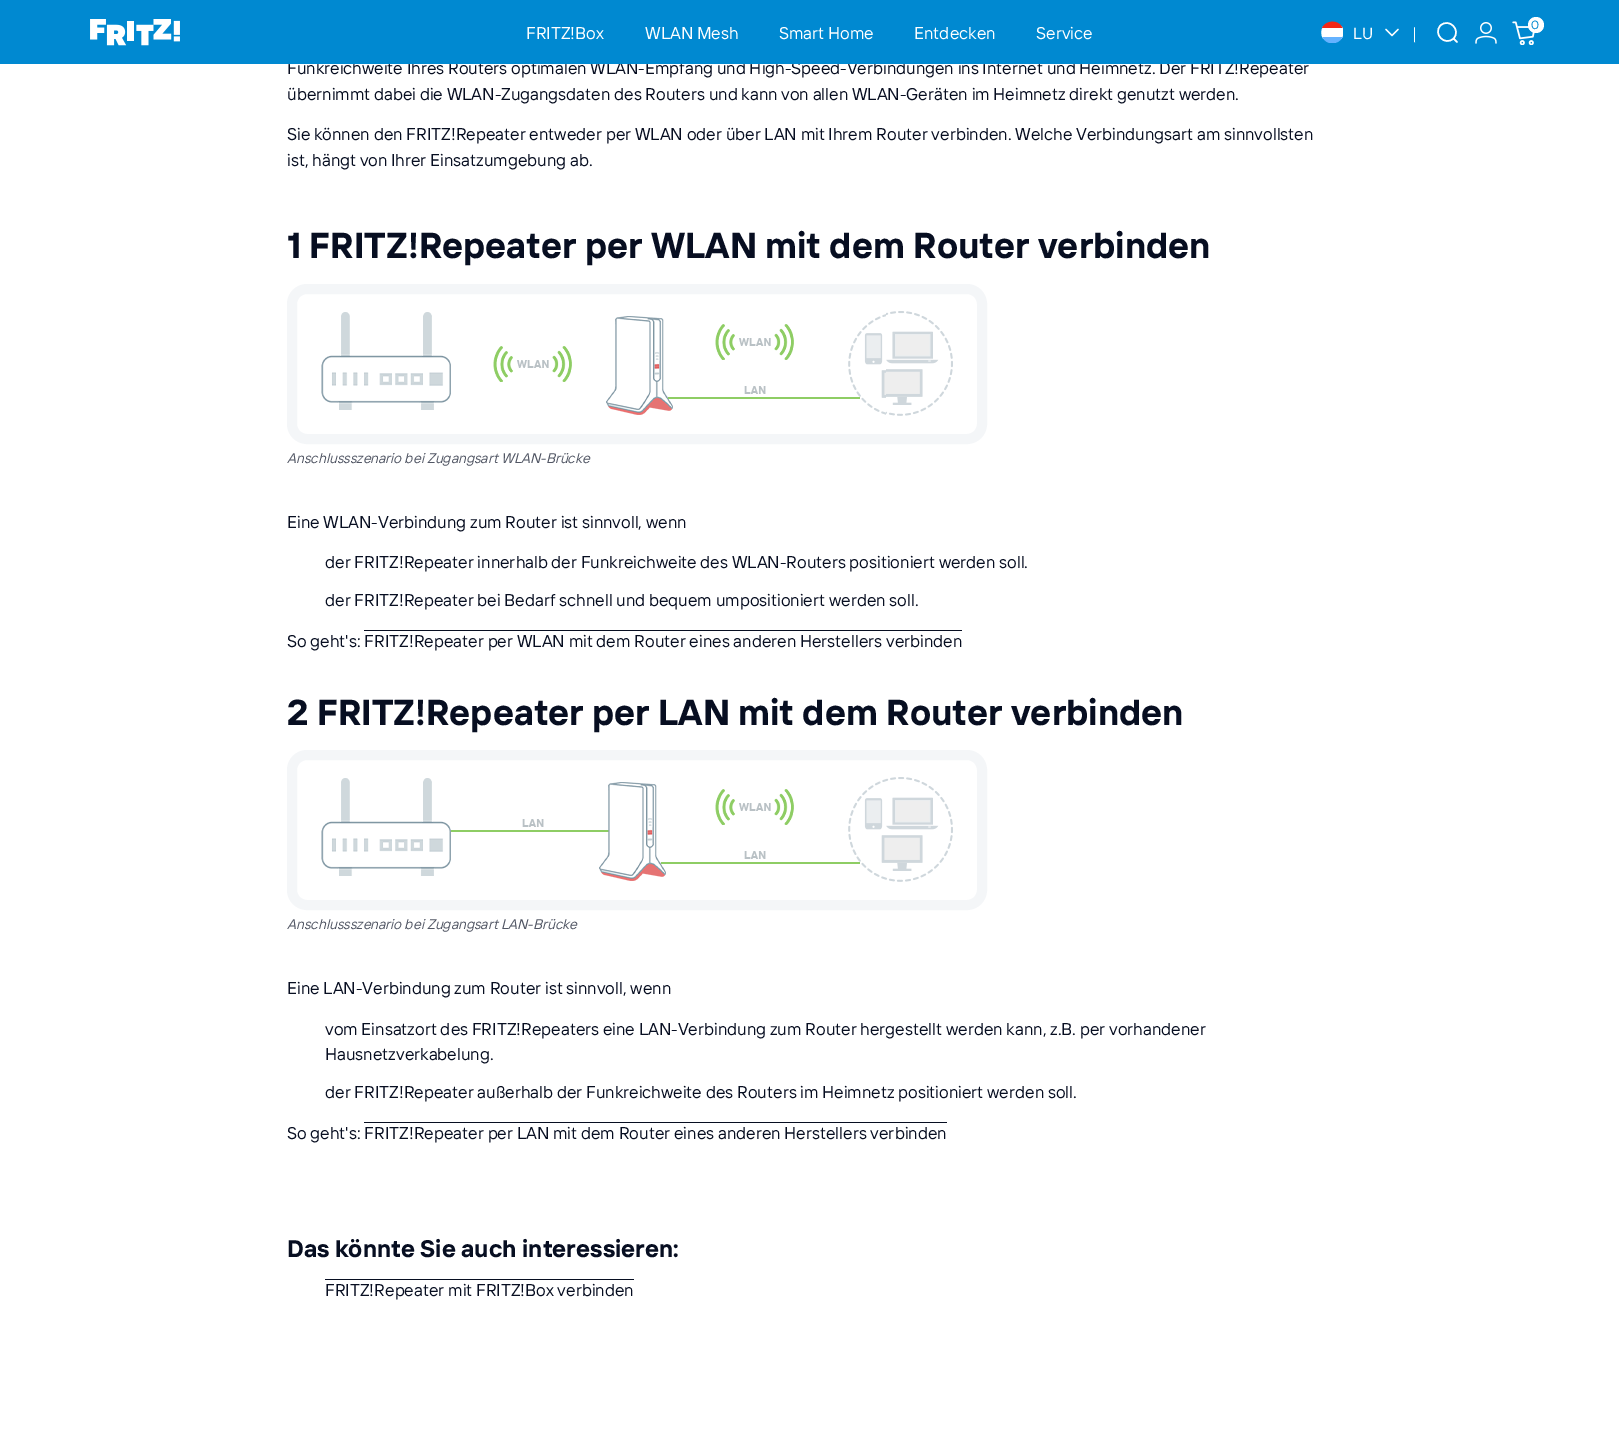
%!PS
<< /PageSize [1619 1431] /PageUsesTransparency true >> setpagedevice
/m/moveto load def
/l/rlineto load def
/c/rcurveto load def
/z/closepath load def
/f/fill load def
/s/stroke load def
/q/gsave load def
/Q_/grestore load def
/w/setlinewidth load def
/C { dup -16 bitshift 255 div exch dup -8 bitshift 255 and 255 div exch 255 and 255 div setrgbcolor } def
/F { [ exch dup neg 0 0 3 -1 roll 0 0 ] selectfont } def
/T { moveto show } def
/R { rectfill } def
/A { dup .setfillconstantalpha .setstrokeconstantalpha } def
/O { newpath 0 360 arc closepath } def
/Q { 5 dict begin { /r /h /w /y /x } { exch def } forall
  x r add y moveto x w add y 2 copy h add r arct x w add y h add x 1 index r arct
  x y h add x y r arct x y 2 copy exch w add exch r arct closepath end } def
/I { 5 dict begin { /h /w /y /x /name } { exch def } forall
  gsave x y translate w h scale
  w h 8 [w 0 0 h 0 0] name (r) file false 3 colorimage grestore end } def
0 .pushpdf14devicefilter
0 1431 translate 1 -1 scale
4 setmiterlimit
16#FFFFFF C
0 0 1619 1431 R
/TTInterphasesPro-Regular 17 F
16#070E21 C
(Funkreichweite Ihres Routers optimalen WLAN-Empfang und High-Speed-Verbindungen ins Internet und Heimnetz. Der FRITZ!Repeater) 287 74 T
16#0089D1 C
0 0 1619 64 R
(1.rgb) 90 19 90 27 I
16#FFFFFF C
(FRITZ!Box) 526 39 T
(WLAN Mesh) 645 39 T
(Smart Home) 779 39 T
(Entdecken) 914 39 T
(Service) 1036 39 T
1.5 w
1 setlinecap
1457 42 m -3.5 -3.5 l 1453.5 38.5 m 8 -8.5 -4.5 -21 -13 -13 c -8 8.5 4.5 21 13 13 c z s
(2.rgb) 1475 22 22 22 I
(3.rgb) 1512 21 23 24 I
1536 25 8 O f
/TTInterphasesPro-Regular 12 F
16#0089D1 C
(0) 1531 29 T
q
1321 21 22 22 rectclip
16#FFFFFF C
1343.5 32.5 m 0 2.5 -1 4.5 -2 6.5 c -18 0 l -3 -3.5 -3 -9 0 -13 c 18 0 l 1.5 2 2 4 2 6.5 c z f
16#65B2FF C
1342.5 37 m -20 0 l 3.5 8.5 16 8.5 20 0 c z f
Q_
16#F32614 C
1342.5 28 m -20.5 0 l 4 -8.5 17 -8.5 20.5 0 c z f
/TTInterphasesPro-Regular 16 F
16#FFFFFF C
(LU) 1353 39 T
1.4 w
1 setlinejoin
1386 29.5 m 6 6 l 6 -6 l s
(|) 1412 39 T
0.11 A
288 64 1003 1 R
/TTInterphasesPro-Regular 17 F
1 A
16#070E21 C
(übernimmt dabei die WLAN-Zugangsdaten des Routers und kann von allen WLAN-Geräten im Heimnetz direkt genutzt werden.) 287 100 T
(Sie können den FRITZ!Repeater entweder per WLAN oder über LAN mit Ihrem Router verbinden. Welche Verbindungsart am sinnvollsten) 287 140 T
(ist, hängt von Ihrer Einsatzumgebung ab.) 287 166 T
/TTInterphasesPro-Bold 36 F
(1 FRITZ!Repeater per WLAN mit dem Router verbinden) 287 258 T
16#F4F6F8 C
10 w
0 setlinecap
0 setlinejoin
292 289 690 150 15 Q s
(4.rgb) 321 311 632 105 I
/TTInterphasesPro-Italic 14 F
16#515664 C
(Anschlussszenario bei Zugangsart WLAN-Brücke) 287 463 T
/TTInterphasesPro-Regular 17 F
16#070E21 C
(Eine WLAN-Verbindung zum Router ist sinnvoll, wenn) 287 528 T
(der FRITZ!Repeater innerhalb der Funkreichweite des WLAN-Routers positioniert werden soll.) 325 568 T
(der FRITZ!Repeater bei Bedarf schnell und bequem umpositioniert werden soll.) 325 606 T
364 630 598 1 R
(So geht's: FRITZ!Repeater per WLAN mit dem Router eines anderen Herstellers verbinden) 287 647 T
/TTInterphasesPro-Bold 36 F
(2 FRITZ!Repeater per LAN mit dem Router verbinden) 287 725 T
16#F4F6F8 C
292 755 690 150 15 Q s
(5.rgb) 321 777 632 105 I
/TTInterphasesPro-Italic 14 F
16#515664 C
(Anschlussszenario bei Zugangsart LAN-Brücke) 287 929 T
/TTInterphasesPro-Regular 17 F
16#070E21 C
(Eine LAN-Verbindung zum Router ist sinnvoll, wenn) 287 994 T
(vom Einsatzort des FRITZ!Repeaters eine LAN-Verbindung zum Router hergestellt werden kann, z.B. per vorhandener) 325 1035 T
(Hausnetzverkabelung.) 325 1060 T
(der FRITZ!Repeater außerhalb der Funkreichweite des Routers im Heimnetz positioniert werden soll.) 325 1098 T
364 1122 583 1 R
(So geht's: FRITZ!Repeater per LAN mit dem Router eines anderen Herstellers verbinden) 287 1139 T
/TTInterphasesPro-Bold 24 F
(Das könnte Sie auch interessieren:) 287 1257 T
/TTInterphasesPro-Regular 17 F
(FRITZ!Repeater mit FRITZ!Box verbinden) 325 1296 T
325 1279 309 1 R
.poppdf14devicefilter showpage
